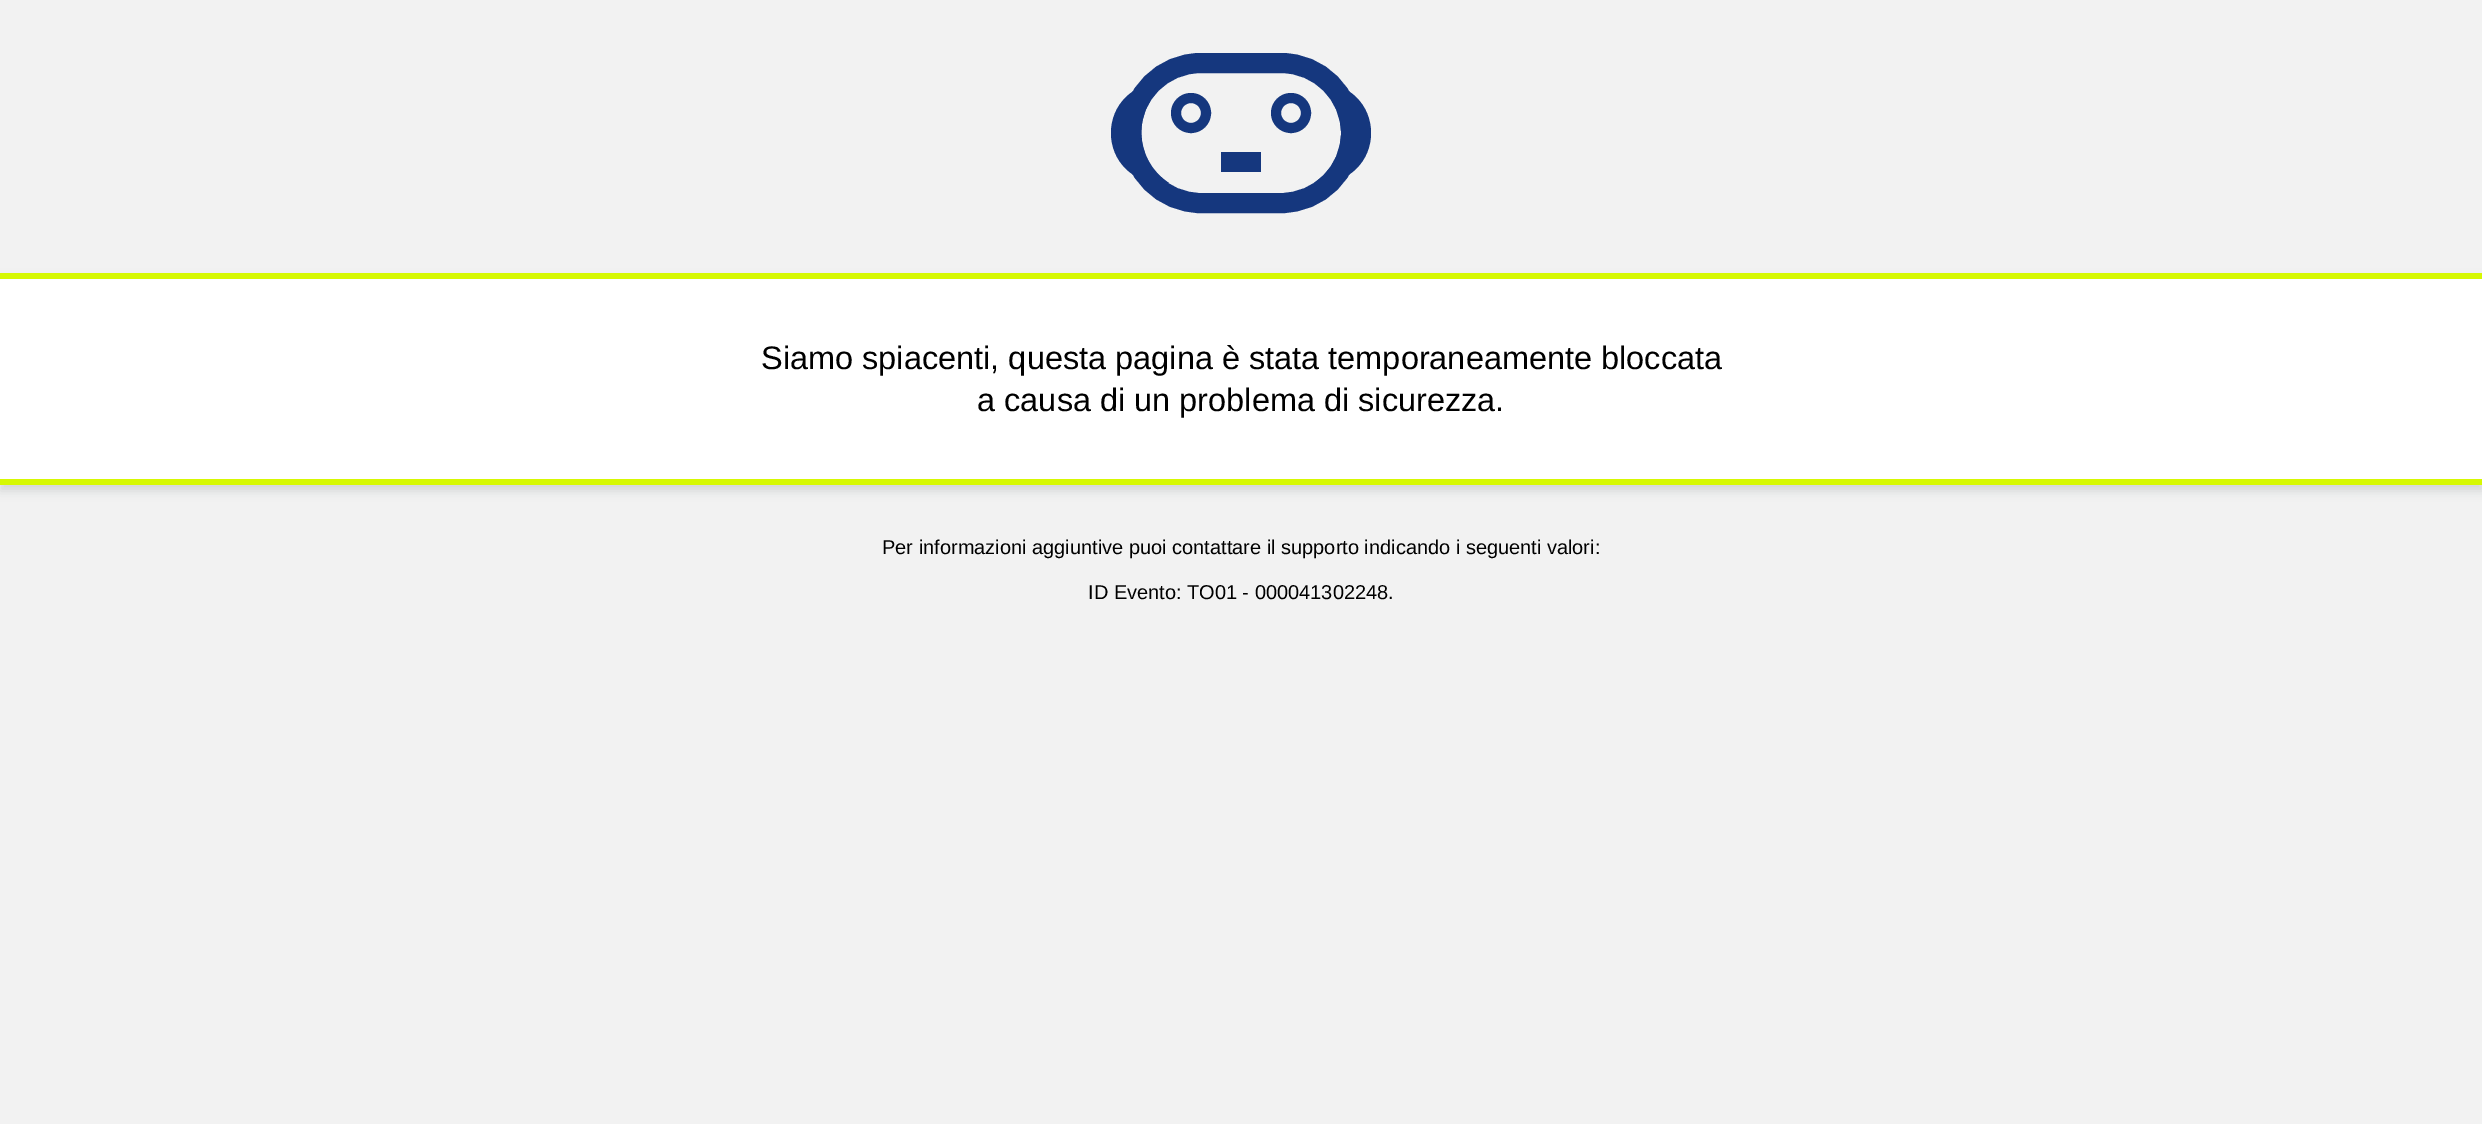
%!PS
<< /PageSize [2482 1124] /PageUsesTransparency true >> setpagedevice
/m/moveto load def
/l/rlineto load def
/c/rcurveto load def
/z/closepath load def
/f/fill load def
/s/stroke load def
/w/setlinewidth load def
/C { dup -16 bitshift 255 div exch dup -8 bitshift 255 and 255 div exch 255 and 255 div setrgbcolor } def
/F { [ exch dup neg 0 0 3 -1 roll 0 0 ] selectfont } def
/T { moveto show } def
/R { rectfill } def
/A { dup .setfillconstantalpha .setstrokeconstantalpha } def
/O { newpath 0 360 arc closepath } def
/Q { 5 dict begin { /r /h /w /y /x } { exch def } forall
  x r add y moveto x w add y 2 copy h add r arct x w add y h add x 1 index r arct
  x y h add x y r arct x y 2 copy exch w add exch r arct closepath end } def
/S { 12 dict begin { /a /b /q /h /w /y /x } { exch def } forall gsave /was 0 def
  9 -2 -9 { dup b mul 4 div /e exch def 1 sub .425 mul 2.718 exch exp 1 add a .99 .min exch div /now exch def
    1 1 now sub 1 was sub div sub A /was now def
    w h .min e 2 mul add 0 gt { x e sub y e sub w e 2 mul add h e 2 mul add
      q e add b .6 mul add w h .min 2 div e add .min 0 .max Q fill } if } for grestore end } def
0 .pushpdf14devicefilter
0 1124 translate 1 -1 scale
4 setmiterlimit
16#F2F2F2 C
0 0 2482 1124 R
16#15377E C
1314 183 m 7 0 l 28 0 50 -22 50 -50 c 0 -28 -22 -50 -50 -50 c -6 0 l 35 24 35 77 -1 100 c z f
1161 83 m -28 0 -50 22 -50 50 c 0 28 22 50 50 50 c 8 0 l -36 -23 -37 -76 -2 -100 c z f
20 w
1131 63 220 140 70 Q s
1221 152 40 20 R
10 w
1191 113 15 O s
1291 113 15 O s
16#D3D4D5 C
0 279 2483 212 0 5 1 S
16#FFFFFF C
0 279 2482 200 R
16#D6F802 C
0 273 2482 6 R
0 479 2482 6 R
/LiberationSans-Regular 32.5 F
16#000000 C
(Siamo spiacenti, questa pagina è stata temporaneamente bloccata) 761 369 T
(a causa di un problema di sicurezza.) 977 411 T
/LiberationSans-Regular 20 F
(Per informazioni aggiuntive puoi contattare il supporto indicando i seguenti valori:) 882 554 T
(ID Evento: TO01 - 000041302248.) 1088 599 T
.poppdf14devicefilter showpage
